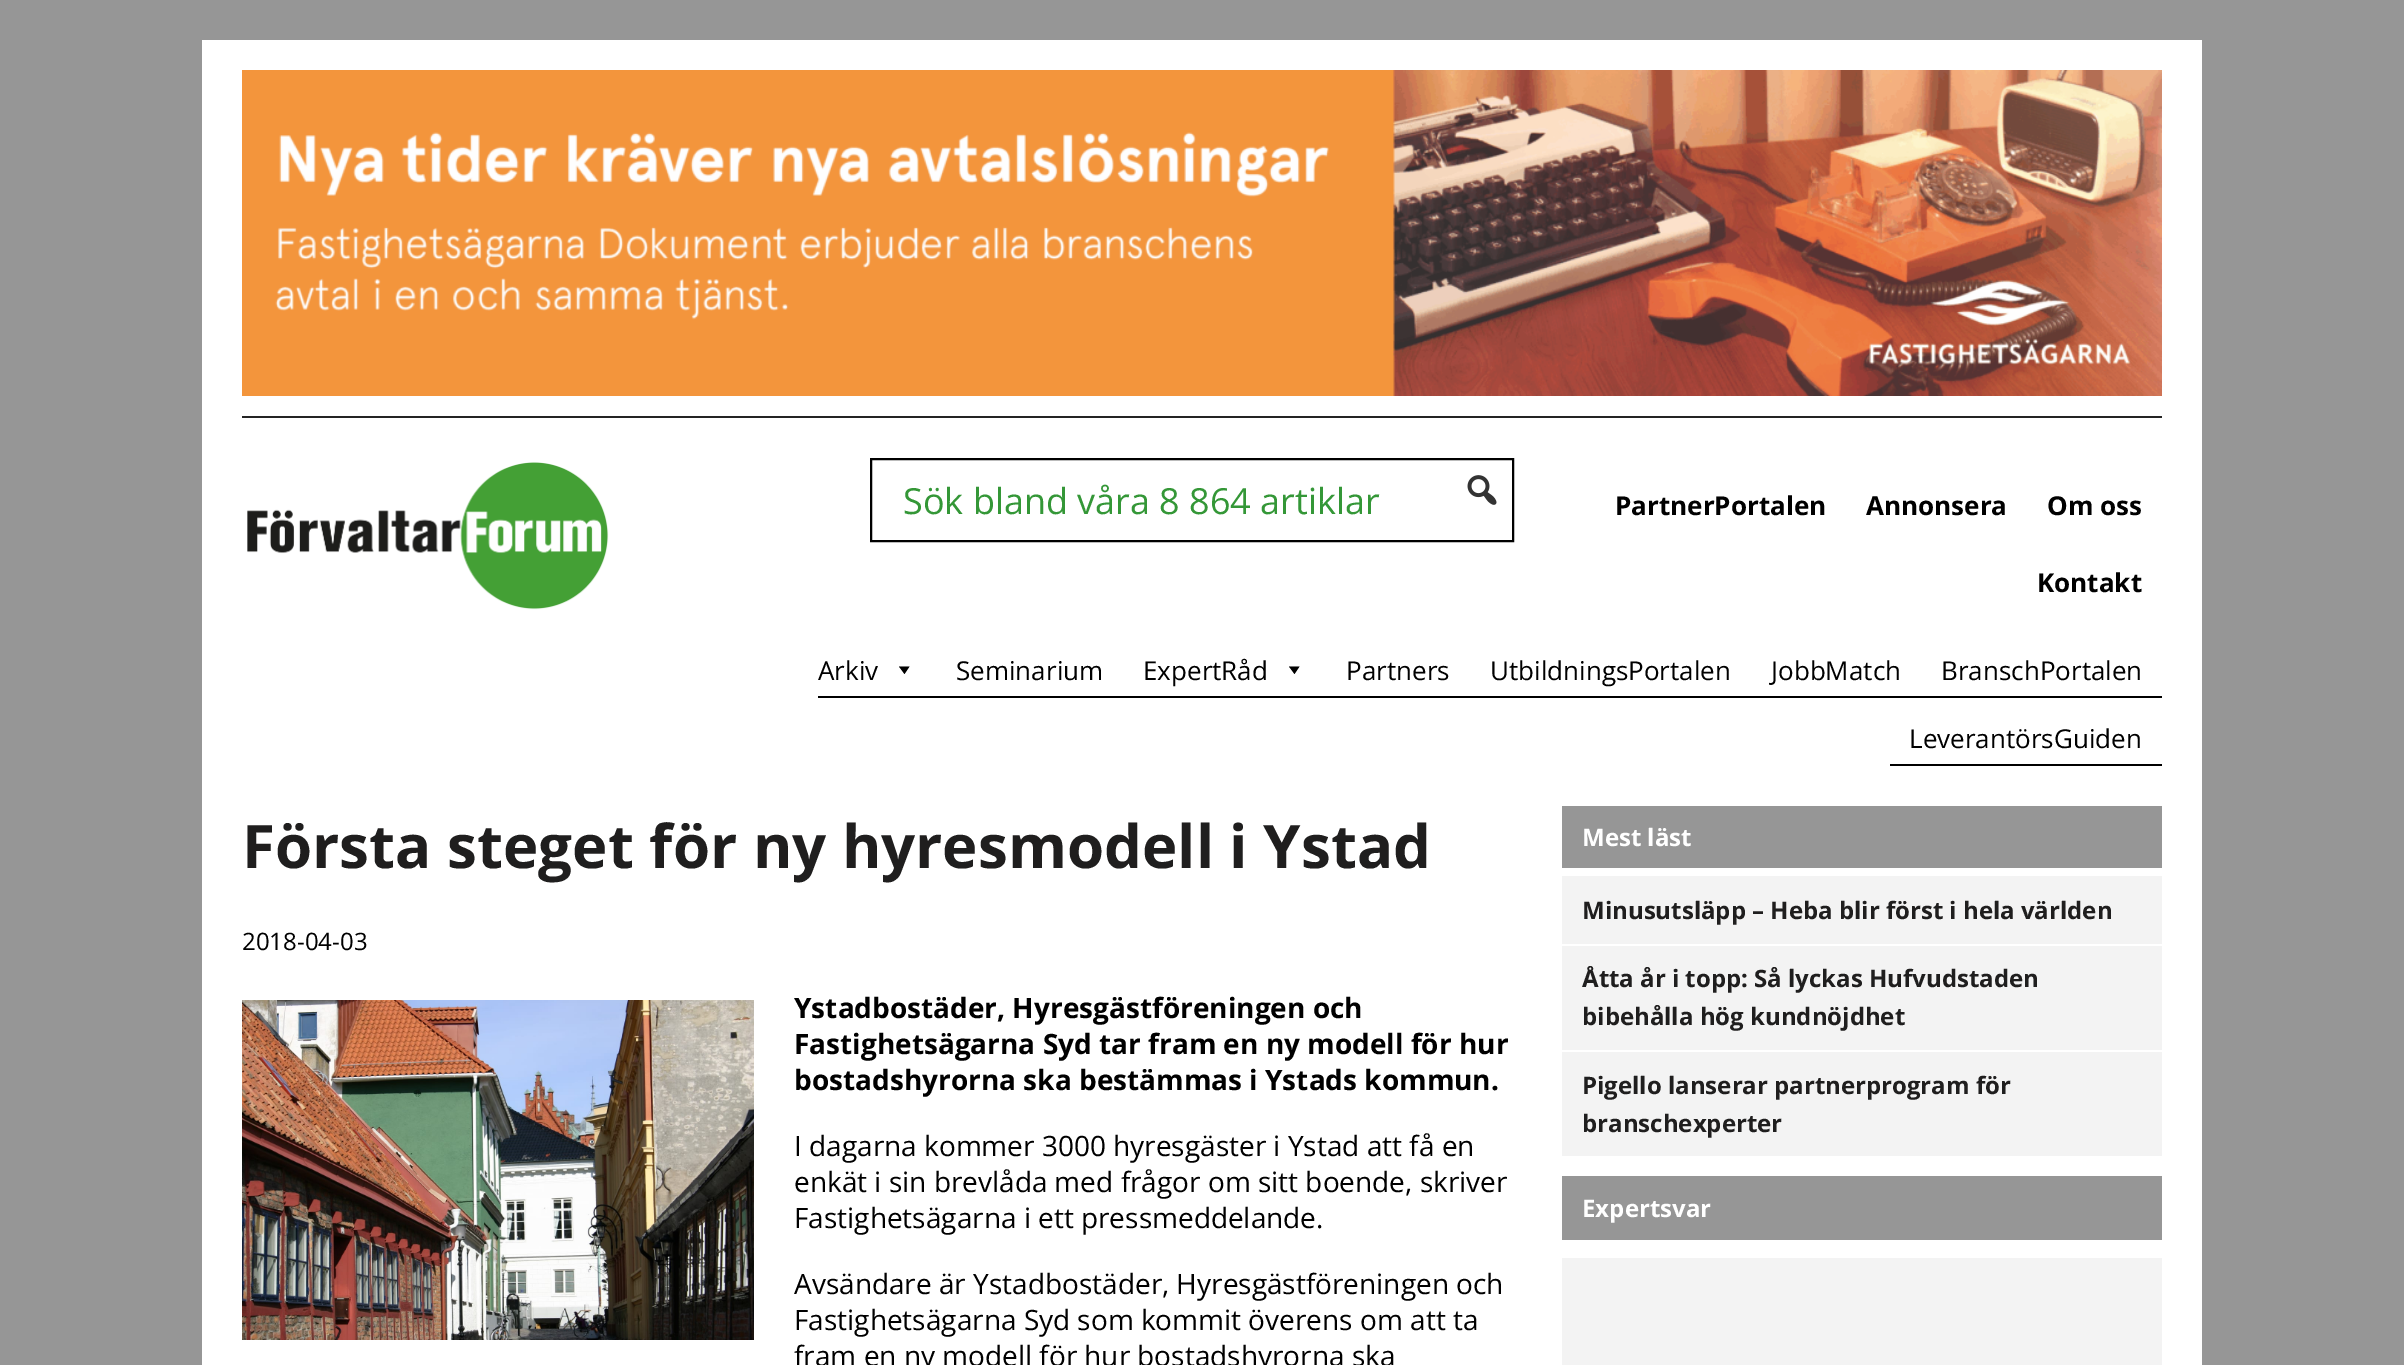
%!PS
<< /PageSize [2404 1365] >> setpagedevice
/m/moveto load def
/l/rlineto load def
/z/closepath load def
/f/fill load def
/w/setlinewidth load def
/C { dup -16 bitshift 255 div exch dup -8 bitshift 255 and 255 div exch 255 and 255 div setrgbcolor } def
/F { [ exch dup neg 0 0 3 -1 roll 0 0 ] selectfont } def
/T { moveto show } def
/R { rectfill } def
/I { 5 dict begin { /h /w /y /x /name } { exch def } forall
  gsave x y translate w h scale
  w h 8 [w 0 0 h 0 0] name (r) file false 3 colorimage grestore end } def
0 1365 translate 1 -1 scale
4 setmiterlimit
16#969696 C
0 0 2404 1365 R
16#FFFFFF C
202 40 2000 1325 R
16#242424 C
242 416 1920 2 R
(1.rgb) 242 70 1920 326 I
(2.rgb) 247 462 362 148 I
16#000000 C
2 w
871 459 642 82 rectstroke
/OpenSans-Regular 36 F
16#349737 C
(Sök bland våra 8 864 artiklar) 903 514 T
(3.rgb) 1467 475 30 30 I
/OpenSans-Bold 26 F
16#000000 C
(PartnerPortalen) 1615 515 T
(Annonsera) 1866 515 T
(Om oss) 2047 515 T
(Kontakt) 2037 592 T
818 696 1344 2 R
/OpenSans-Regular 26 F
(Arkiv) 818 680 T
909.5 666.5 m -5 7.5 l -5.5 -7.5 l z f
(Seminarium) 956 680 T
(ExpertRåd) 1143 680 T
1299.5 666.5 m -5 7.5 l -5.5 -7.5 l z f
(Partners) 1346 680 T
(UtbildningsPortalen) 1490 680 T
(JobbMatch) 1771 680 T
(BranschPortalen) 1941 680 T
1890 764 272 2 R
(LeverantörsGuiden) 1909 748 T
/OpenSans-Bold 60 F
16#1F1E1E C
(Första steget för ny hyresmodell i Ystad) 242 868 T
/OpenSans-Regular 24 F
16#000000 C
(2018-04-03) 242 950 T
(4.rgb) 242 1000 512 340 I
/OpenSans-Bold 28 F
(Ystadbostäder, Hyresgästföreningen och) 794 1018 T
(Fastighetsägarna Syd tar fram en ny modell för hur) 794 1054 T
(bostadshyrorna ska bestämmas i Ystads kommun.) 794 1090 T
/OpenSans-Regular 28 F
(I dagarna kommer 3000 hyresgäster i Ystad att få en) 794 1156 T
(enkät i sin brevlåda med frågor om sitt boende, skriver) 794 1192 T
(Fastighetsägarna i ett pressmeddelande.) 794 1228 T
(Avsändare är Ystadbostäder, Hyresgästföreningen och) 794 1294 T
(Fastighetsägarna Syd som kommit överens om att ta) 794 1330 T
(fram en ny modell för hur bostadshyrorna ska) 794 1366 T
16#969696 C
1562 806 600 62 R
/OpenSans-Bold 24 F
16#FFFFFF C
(Mest läst) 1582 846 T
16#F3F3F3 C
1562 876 600 68 R
16#1F1E1E C
(Minusutsläpp – Heba blir först i hela världen) 1582 919 T
16#F3F3F3 C
1562 946 600 104 R
16#1F1E1E C
(Åtta år i topp: Så lyckas Hufvudstaden) 1582 987 T
(bibehålla hög kundnöjdhet) 1582 1025 T
16#F3F3F3 C
1562 1052 600 104 R
16#1F1E1E C
(Pigello lanserar partnerprogram för) 1582 1094 T
(branschexperter) 1582 1132 T
16#969696 C
1562 1176 600 64 R
16#FFFFFF C
(Expertsvar) 1582 1217 T
16#F3F3F3 C
1562 1258 600 107 R
showpage
